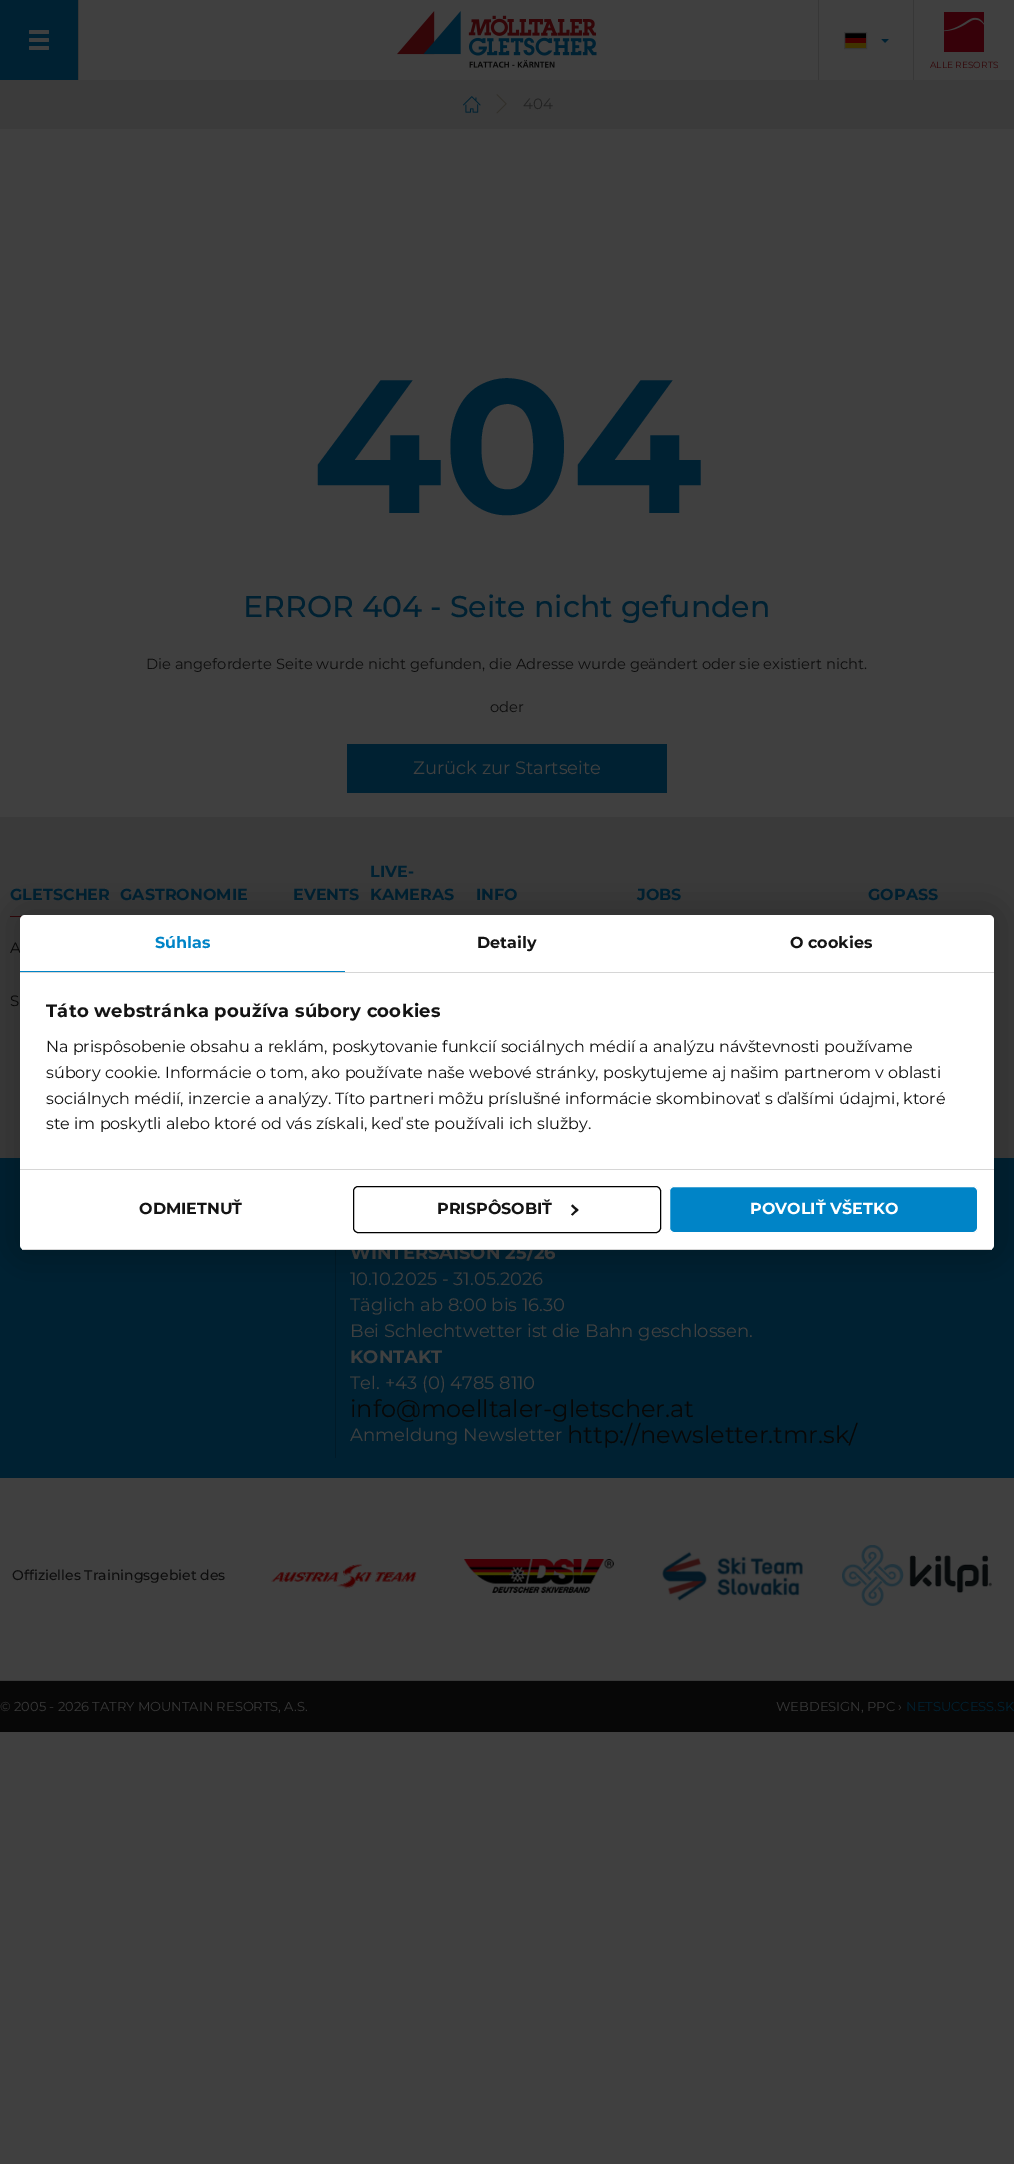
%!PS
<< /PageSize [1014 2164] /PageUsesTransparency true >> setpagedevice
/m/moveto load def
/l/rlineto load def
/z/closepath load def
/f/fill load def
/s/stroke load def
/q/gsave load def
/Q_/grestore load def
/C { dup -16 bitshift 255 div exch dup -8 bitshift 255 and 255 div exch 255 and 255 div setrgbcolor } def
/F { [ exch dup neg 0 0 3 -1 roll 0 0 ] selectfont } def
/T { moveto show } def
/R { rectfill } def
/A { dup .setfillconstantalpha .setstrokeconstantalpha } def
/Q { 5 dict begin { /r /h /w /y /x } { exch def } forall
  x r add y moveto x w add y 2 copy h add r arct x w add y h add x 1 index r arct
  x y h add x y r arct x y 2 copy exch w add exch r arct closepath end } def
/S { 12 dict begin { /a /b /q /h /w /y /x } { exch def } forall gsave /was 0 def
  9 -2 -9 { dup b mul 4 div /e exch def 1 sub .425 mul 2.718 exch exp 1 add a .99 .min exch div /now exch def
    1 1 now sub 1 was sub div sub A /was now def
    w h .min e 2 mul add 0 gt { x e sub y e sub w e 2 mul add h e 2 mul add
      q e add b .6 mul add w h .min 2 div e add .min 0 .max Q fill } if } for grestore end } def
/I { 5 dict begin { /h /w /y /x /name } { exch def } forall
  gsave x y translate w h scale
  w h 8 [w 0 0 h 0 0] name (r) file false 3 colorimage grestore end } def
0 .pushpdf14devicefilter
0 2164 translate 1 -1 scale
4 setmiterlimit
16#404040 C
0 0 1014 2164 R
16#002132 C
0 0 78 80 R
16#373737 C
78 0 1 80 R
(1.rgb) 29 30 20 20 I
818 0 1 80 R
(2.rgb) 845 33 21 15 I
844.5 32.5 22 16 rectstroke
(3.rgb) 881 39 8 4 I
(4.rgb) 397 11 200 57 I
913 0 1 80 R
(5.rgb) 944 12 40 40 I
/Montserrat-Thin 9 F
16#320608 C
(ALLE RESORTS) 930 68 T
16#3B3B3B C
0 80 1014 49 R
(6.rgb) 463 96 18 17 I
(7.rgb) 496 94 11 20 I
/Montserrat-Thin 15 F
16#222222 C
(404) 523 109 T
/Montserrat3-Thin 190 F
16#002132 C
(404) 312 513 T
/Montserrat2-Thin 30 F
(ERROR 404 - Seite nicht gefunden) 243 617 T
/Montserrat-Thin 14.7 F
16#0D0D0D C
(Die angeforderte Seite wurde nicht gefunden, die Adresse wurde geändert oder sie existiert nicht.) 146 669 T
(oder) 490 712 T
16#002132 C
347 744 320 49 R
/Montserrat-Thin 18 F
16#404040 C
(Zurück zur Startseite) 413 774 T
16#3A3A3A C
0 817 1014 341 R
/Montserrat3-Thin 16 F
16#002132 C
(LIVE-) 370 877 T
(KAMERAS) 370 900 T
16#320608 C
10 916 12 1 R
16#002132 C
(GLETSCHER) 10 900 T
/Montserrat-Thin 15 F
16#070707 C
(A) 10 953 T
(S) 10 1006 T
/Montserrat3-Thin 16 F
16#002132 C
(GASTRONOMIE) 120 900 T
(EVENTS) 293 900 T
(INFO) 476 900 T
(JOBS) 637 900 T
(GOPASS) 868 900 T
0 1158 1014 320 R
16#001A28 C
335 1250 1 208 R
/Montserrat3-Thin 18 F
16#404040 C
(WINTERSAISON 25/26) 350 1259 T
/Montserrat-Thin 18 F
(10.10.2025 - 31.05.2026) 350 1285 T
(Täglich ab 8:00 bis 16.30) 350 1311 T
(Bei Schlechtwetter ist die Bahn geschlossen.) 350 1337 T
/Montserrat3-Thin 18 F
(KONTAKT) 350 1363 T
/Montserrat-Thin 18 F
(Tel. +43 \(0\) 4785 8110) 350 1389 T
/Montserrat-Thin 24 F
16#070707 C
(info@moelltaler-gletscher.at) 350 1417 T
/Montserrat-Thin 18 F
16#404040 C
(Anmeldung Newsletter) 350 1441 T
/Montserrat-Thin 24 F
16#070707 C
(http://newsletter.tmr.sk/) 567 1443 T
/Montserrat2-Thin 14 F
16#0D0D0D C
(Offizielles Trainingsgebiet des) 12 1580 T
(8.rgb) 271 1563 146 26 I
(9.rgb) 464 1559 150 34 I
(10.rgb) 662 1551 141 50 I
(11.rgb) 842 1545 150 61 I
16#070707 C
0 1681 1014 51 R
16#383838 C
0 1680 1014 1 R
/Montserrat-Thin 13 F
(© 2005 - 2026 TATRY MOUNTAIN RESORTS, A.S.) 0 1711 T
(WEBDESIGN, PPC ›) 776 1711 T
16#002132 C
(NETSUCCESS.SK) 906 1711 T
16#000000 C
10 905 994 355 15 17.5 .2 S
16#FFFFFF C
20 915 974 335 5 Q f
16#D6D6D6 C
20 972 974 1 R
16#0084C7 C
20 971 325 1 R
/Montserrat3-Thin 16 F
(Súhlas) 155 948 T
16#141414 C
(Detaily) 477 948 T
(O cookies) 790 948 T
16#D6D6D6 C
20 1169 974 1 R
/Montserrat3-Thin 18 F
16#141414 C
46 1017 m .25 0 (Táto webstránka používa súbory cookies) ashow
/Montserrat-Thin 16 F
(Na prispôsobenie obsahu a reklám, poskytovanie funkcií sociálnych médií a analýzu návštevnosti používame) 46 1052 T
(súbory cookie. Informácie o tom, ako používate naše webové stránky, poskytujeme aj našim partnerom v oblasti) 46 1078 T
(sociálnych médií, inzercie a analýzy. Títo partneri môžu príslušné informácie skombinovať s ďalšími údajmi, ktoré) 46 1104 T
(ste im poskytli alebo ktoré od vás získali, keď ste používali ich služby.) 46 1129 T
q
20 915 974 335 5 Q clip newpath
16#D6D6D6 C
20 1249 974 1 R
Q_
/Montserrat3-Thin 16 F
(ODMIETNUŤ) 139 1214 T
16#000000 C
353.5 1186.5 307 46 4.5 Q s
16#141414 C
(PRISPÔSOBIŤ) 437 1214 T
572.5 1204.5 m 6 5.5 l -1.5 1.5 l -6 -5.5 l z f
577 1208.5 m 1.5 1.5 l -6 5.5 l -1.5 -1 l z f
16#0084C7 C
669.5 1186.5 308 46 4.5 Q q f Q_
16#FFFFFF C
s
(POVOLIŤ VŠETKO) 750 1214 T
.poppdf14devicefilter showpage
